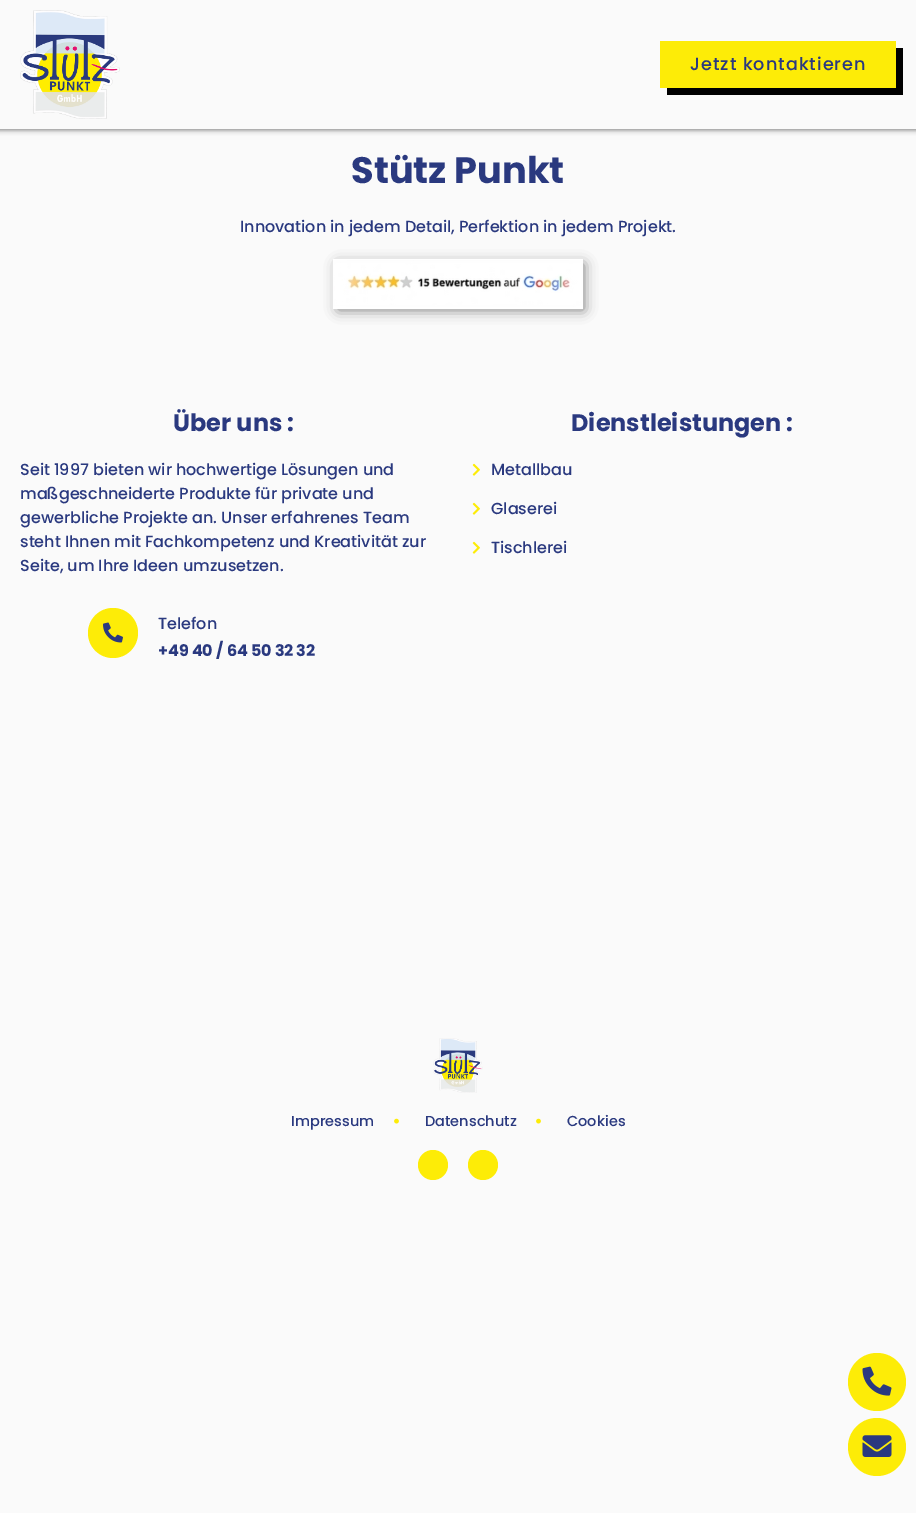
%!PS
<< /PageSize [916 1513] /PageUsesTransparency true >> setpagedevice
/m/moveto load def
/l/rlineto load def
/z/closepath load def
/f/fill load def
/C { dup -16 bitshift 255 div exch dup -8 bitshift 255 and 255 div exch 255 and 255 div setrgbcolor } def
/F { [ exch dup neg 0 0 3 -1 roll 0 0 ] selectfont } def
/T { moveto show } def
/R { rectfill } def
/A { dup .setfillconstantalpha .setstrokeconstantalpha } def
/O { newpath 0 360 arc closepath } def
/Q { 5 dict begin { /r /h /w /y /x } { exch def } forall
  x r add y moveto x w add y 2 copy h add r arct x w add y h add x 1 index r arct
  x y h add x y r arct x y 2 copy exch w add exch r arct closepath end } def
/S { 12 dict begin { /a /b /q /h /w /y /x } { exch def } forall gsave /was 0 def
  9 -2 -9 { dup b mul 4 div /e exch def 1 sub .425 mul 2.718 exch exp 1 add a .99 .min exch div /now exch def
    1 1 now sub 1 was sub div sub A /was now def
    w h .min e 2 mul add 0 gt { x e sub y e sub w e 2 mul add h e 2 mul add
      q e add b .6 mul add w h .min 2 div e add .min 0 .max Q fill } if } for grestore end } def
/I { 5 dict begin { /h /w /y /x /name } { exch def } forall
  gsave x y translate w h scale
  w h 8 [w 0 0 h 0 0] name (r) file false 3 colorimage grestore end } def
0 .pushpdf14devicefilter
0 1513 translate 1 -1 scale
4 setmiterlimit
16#FAFAFA C
0 0 916 1513 R
16#000000 C
-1 -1 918 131 0 2.5 .5 S
16#FAFAFA C
0 0 916 129 R
(1.rgb) 20 10 100 109 I
16#000000 C
667 88 m 0 7 l 236 0 l 0 -47 l -7 0 l 0 40 l z f
16#FDEC07 C
660 41 236 47 R
/Poppins-Medium 17.6 F
16#2A397F C
690 70 m 1 0 (Jetzt kontaktieren) ashow
16#FDEC07 C
877 1382 29 O f
(2.rgb) 862 1366 30 30 I
877 1447 29 O f
(3.rgb) 862 1435 30 22 I
/Poppins-Bold 36.75 F
16#2A397F C
(Stütz Punkt) 351 183 T
/Poppins-Medium 16 F
(Innovation in jedem Detail, Perfektion in jedem Projekt.) 240 232 T
16#000000 C
338 264 246 46 0 6.5 .5 S
(4.rgb) 333 259 250 50 I
/Poppins-Bold 24 F
16#2A397F C
(Über uns :) 173 431 T
/Poppins-Medium 16 F
(Seit 1997 bieten wir hochwertige Lösungen und) 20 475 T
(maßgeschneiderte Produkte für private und) 20 499 T
(gewerbliche Projekte an. Unser erfahrenes Team) 20 523 T
(steht Ihnen mit Fachkompetenz und Kreativität zur) 20 547 T
(Seite, um Ihre Ideen umzusetzen.) 20 571 T
16#FDEC07 C
113 633 25 O f
(5.rgb) 103 622 20 21 I
16#2A397F C
(Telefon) 158 629 T
/Poppins-Bold 16 F
158 656 m -.1 0 (+49 40 / 64 50 32 32) ashow
/Poppins-Bold 24 F
(Dienstleistungen :) 571 431 T
(6.rgb) 472 463 8 13 I
/Poppins-Medium 16 F
(Metallbau) 491 475 T
(6.rgb) 472 502 8 13 I
(Glaserei) 491 514 T
(6.rgb) 472 541 8 13 I
(Tischlerei) 491 553 T
(7.rgb) 433 1038 50 55 I
/Poppins-Medium 14.5 F
(Impressum) 291 1126 T
(8.rgb) 394 1118 5 6 I
(Datenschutz) 425 1126 T
(8.rgb) 536 1118 5 6 I
(Cookies) 567 1126 T
16#FDEC07 C
433 1165 15 O f
483 1165 15 O f
.poppdf14devicefilter showpage
